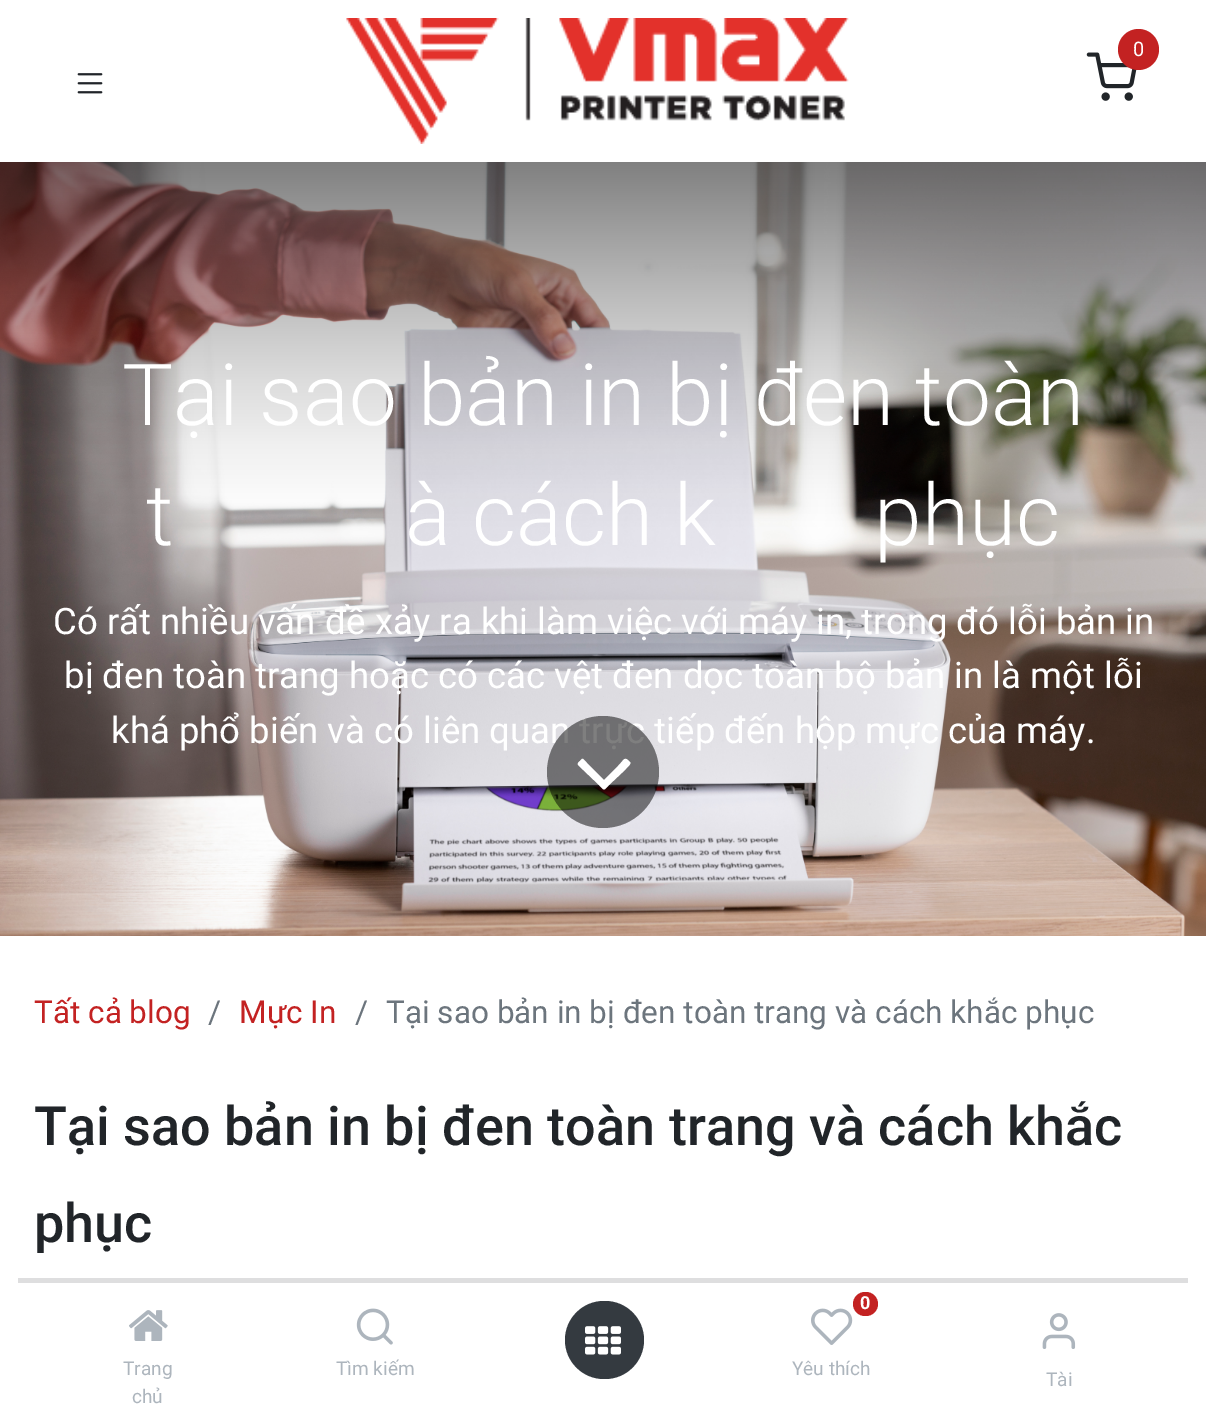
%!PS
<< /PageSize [1206 1406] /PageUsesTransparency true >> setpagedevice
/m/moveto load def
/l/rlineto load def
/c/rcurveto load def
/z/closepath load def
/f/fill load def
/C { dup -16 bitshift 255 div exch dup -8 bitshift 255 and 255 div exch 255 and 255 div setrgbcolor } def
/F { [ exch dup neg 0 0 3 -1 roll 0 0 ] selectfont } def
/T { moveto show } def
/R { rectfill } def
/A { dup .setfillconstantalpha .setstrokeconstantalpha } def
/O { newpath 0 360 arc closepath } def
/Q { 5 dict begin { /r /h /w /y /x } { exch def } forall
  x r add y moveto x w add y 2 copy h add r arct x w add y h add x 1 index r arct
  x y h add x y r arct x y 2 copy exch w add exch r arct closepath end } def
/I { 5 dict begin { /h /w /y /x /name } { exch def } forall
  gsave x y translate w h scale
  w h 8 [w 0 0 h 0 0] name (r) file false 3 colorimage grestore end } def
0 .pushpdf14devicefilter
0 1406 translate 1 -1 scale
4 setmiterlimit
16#FFFFFF C
0 0 1206 1406 R
(1.rgb) 346 18 503 126 I
(2.rgb) 1086 52 51 49 I
16#C32222 C
1138.5 49.5 20.5 O f
/Roboto-Regular 20 F
16#FFFFFF C
(0) 1133 56 T
(3.rgb) 77 73 26 21 I
(4.rgb) 0 162 1206 774 I
/Roboto-Light 85.7 F
(Tại sao bản in bị đen toàn) 122 425 T
(t) 146 545 T
(à cách k) 405 545 T
(phục) 874 545 T
/Roboto-Regular 36.55 F
(Có rất nhiều vấn đề xảy ra khi làm việc với máy in, trong đó lỗi bản in) 53 634 T
(bị đen toàn trang hoặc có các vệt đen dọc toàn bộ bản in là một lỗi) 64 688 T
(khá phổ biến và có liên quan trực tiếp đến hộp mực của máy.) 111 743 T
0.5 A
16#000000 C
603 772 56 O f
1 A
16#FFFFFF C
630 762 m 2 2 -4 6 -4 7 c -17 16 l -6 6 -4 6 -10 0 c -21 -20 l -1 -2 1 -3 2 -4 c 3 -4 3 -2 7 2 c 17 17 l 14 -14 l 7 -7 6 -10 12 -4 c z f
/Roboto-Regular 31.5 F
16#C32222 C
(Tất cả blog) 34 1023 T
16#6C757D C
(/) 208 1023 T
16#C32222 C
(Mực In) 239 1023 T
16#6C757D C
(/) 355 1023 T
(Tại sao bản in bị đen toàn trang và cách khắc phục) 386 1023 T
/Roboto-Medium 54 F
16#212529 C
(Tại sao bản in bị đen toàn trang và cách khắc) 34 1145 T
(phục) 34 1242 T
16#DEDEDF C
18 1278 1170 5 R
(5.rgb) 129 1310 39 31 I
/Roboto-Regular 19 F
16#ADB5BD C
(Trang) 123 1375 T
(chủ) 132 1403 T
(6.rgb) 356 1308 37 37 I
(Tìm kiếm) 336 1375 T
16#343A40 C
565 1301 79 78 39 Q f
(7.rgb) 585 1326 36 29 I
16#C32222 C
853 1292 25 24 12 Q f
/Roboto-Bold 18 F
16#FFFFFF C
(0) 860 1309 T
(8.rgb) 811 1308 42 37 I
/Roboto-Regular 19 F
16#ADB5BD C
(Yêu thích) 792 1375 T
(9.rgb) 1042 1313 34 36 I
(Tài) 1046 1386 T
.poppdf14devicefilter showpage
